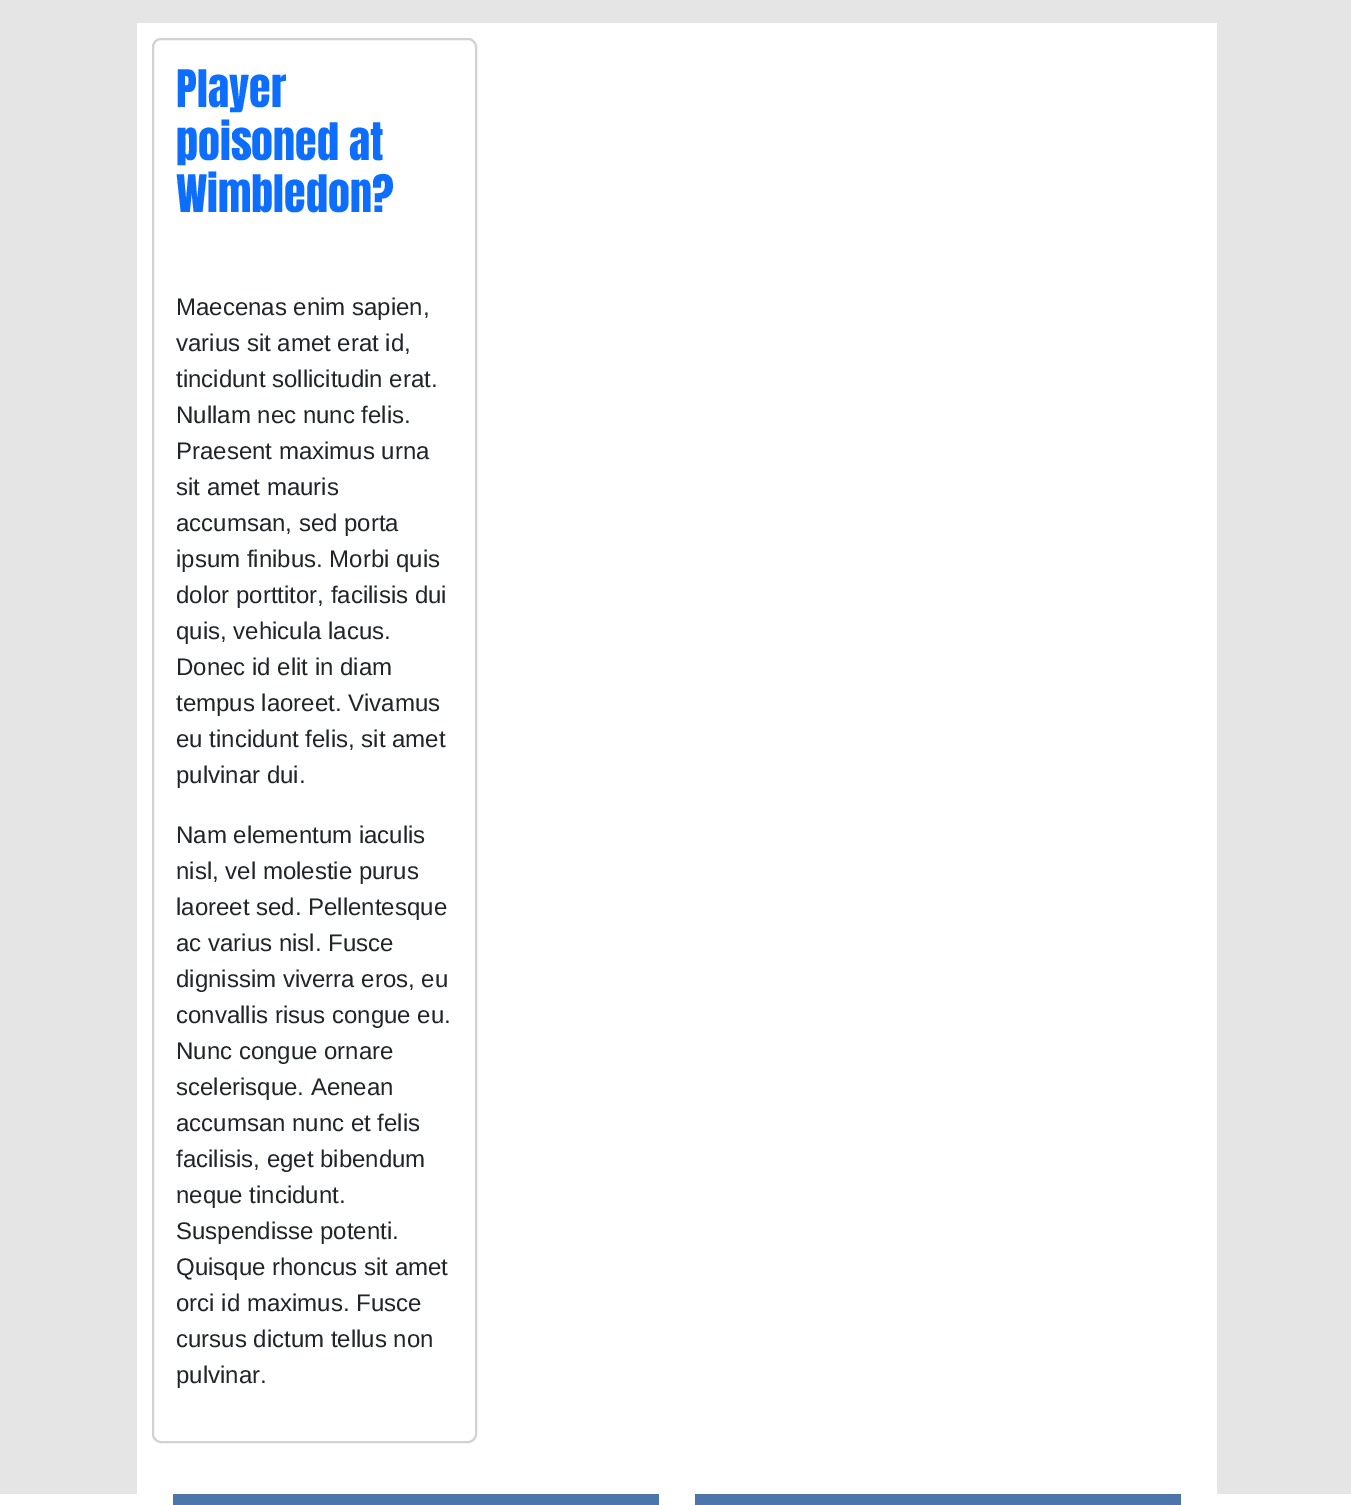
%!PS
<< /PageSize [1351 1505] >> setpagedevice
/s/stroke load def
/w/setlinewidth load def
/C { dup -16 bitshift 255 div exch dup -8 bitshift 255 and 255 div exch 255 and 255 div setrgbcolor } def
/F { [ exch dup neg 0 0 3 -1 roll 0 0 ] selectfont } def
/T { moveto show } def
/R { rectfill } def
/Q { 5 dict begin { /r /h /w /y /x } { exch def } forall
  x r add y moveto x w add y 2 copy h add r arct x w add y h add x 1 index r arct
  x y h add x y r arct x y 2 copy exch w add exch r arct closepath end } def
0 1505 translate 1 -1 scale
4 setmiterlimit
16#E5E5E5 C
0 0 1351 1505 R
16#FFFFFF C
137 23 1080 1471 R
16#D2D2D2 C
2 w
153 39 323 1403 8 Q s
/Anton-Regular 44 F
16#0D6EFD C
(Player) 176 107 T
(poisoned at) 176 160 T
(Wimbledon?) 176 212 T
/LiberationSans-Regular 24 F
16#212529 C
(Maecenas enim sapien,) 176 315 T
(varius sit amet erat id,) 176 351 T
(tincidunt sollicitudin erat.) 176 387 T
(Nullam nec nunc felis.) 176 423 T
(Praesent maximus urna) 176 459 T
(sit amet mauris) 176 495 T
(accumsan, sed porta) 176 531 T
(ipsum finibus. Morbi quis) 176 567 T
(dolor porttitor, facilisis dui) 176 603 T
(quis, vehicula lacus.) 176 639 T
(Donec id elit in diam) 176 675 T
(tempus laoreet. Vivamus) 176 711 T
(eu tincidunt felis, sit amet) 176 747 T
(pulvinar dui.) 176 783 T
(Nam elementum iaculis) 176 843 T
(nisl, vel molestie purus) 176 879 T
(laoreet sed. Pellentesque) 176 915 T
(ac varius nisl. Fusce) 176 951 T
(dignissim viverra eros, eu) 176 987 T
(convallis risus congue eu.) 176 1023 T
(Nunc congue ornare) 176 1059 T
(scelerisque. Aenean) 176 1095 T
(accumsan nunc et felis) 176 1131 T
(facilisis, eget bibendum) 176 1167 T
(neque tincidunt.) 176 1203 T
(Suspendisse potenti.) 176 1239 T
(Quisque rhoncus sit amet) 176 1275 T
(orci id maximus. Fusce) 176 1311 T
(cursus dictum tellus non) 176 1347 T
(pulvinar.) 176 1383 T
16#FFFFFF C
0 1494 1351 11 R
16#4C75A9 C
173 1494 486 11 R
695 1494 486 11 R
showpage
